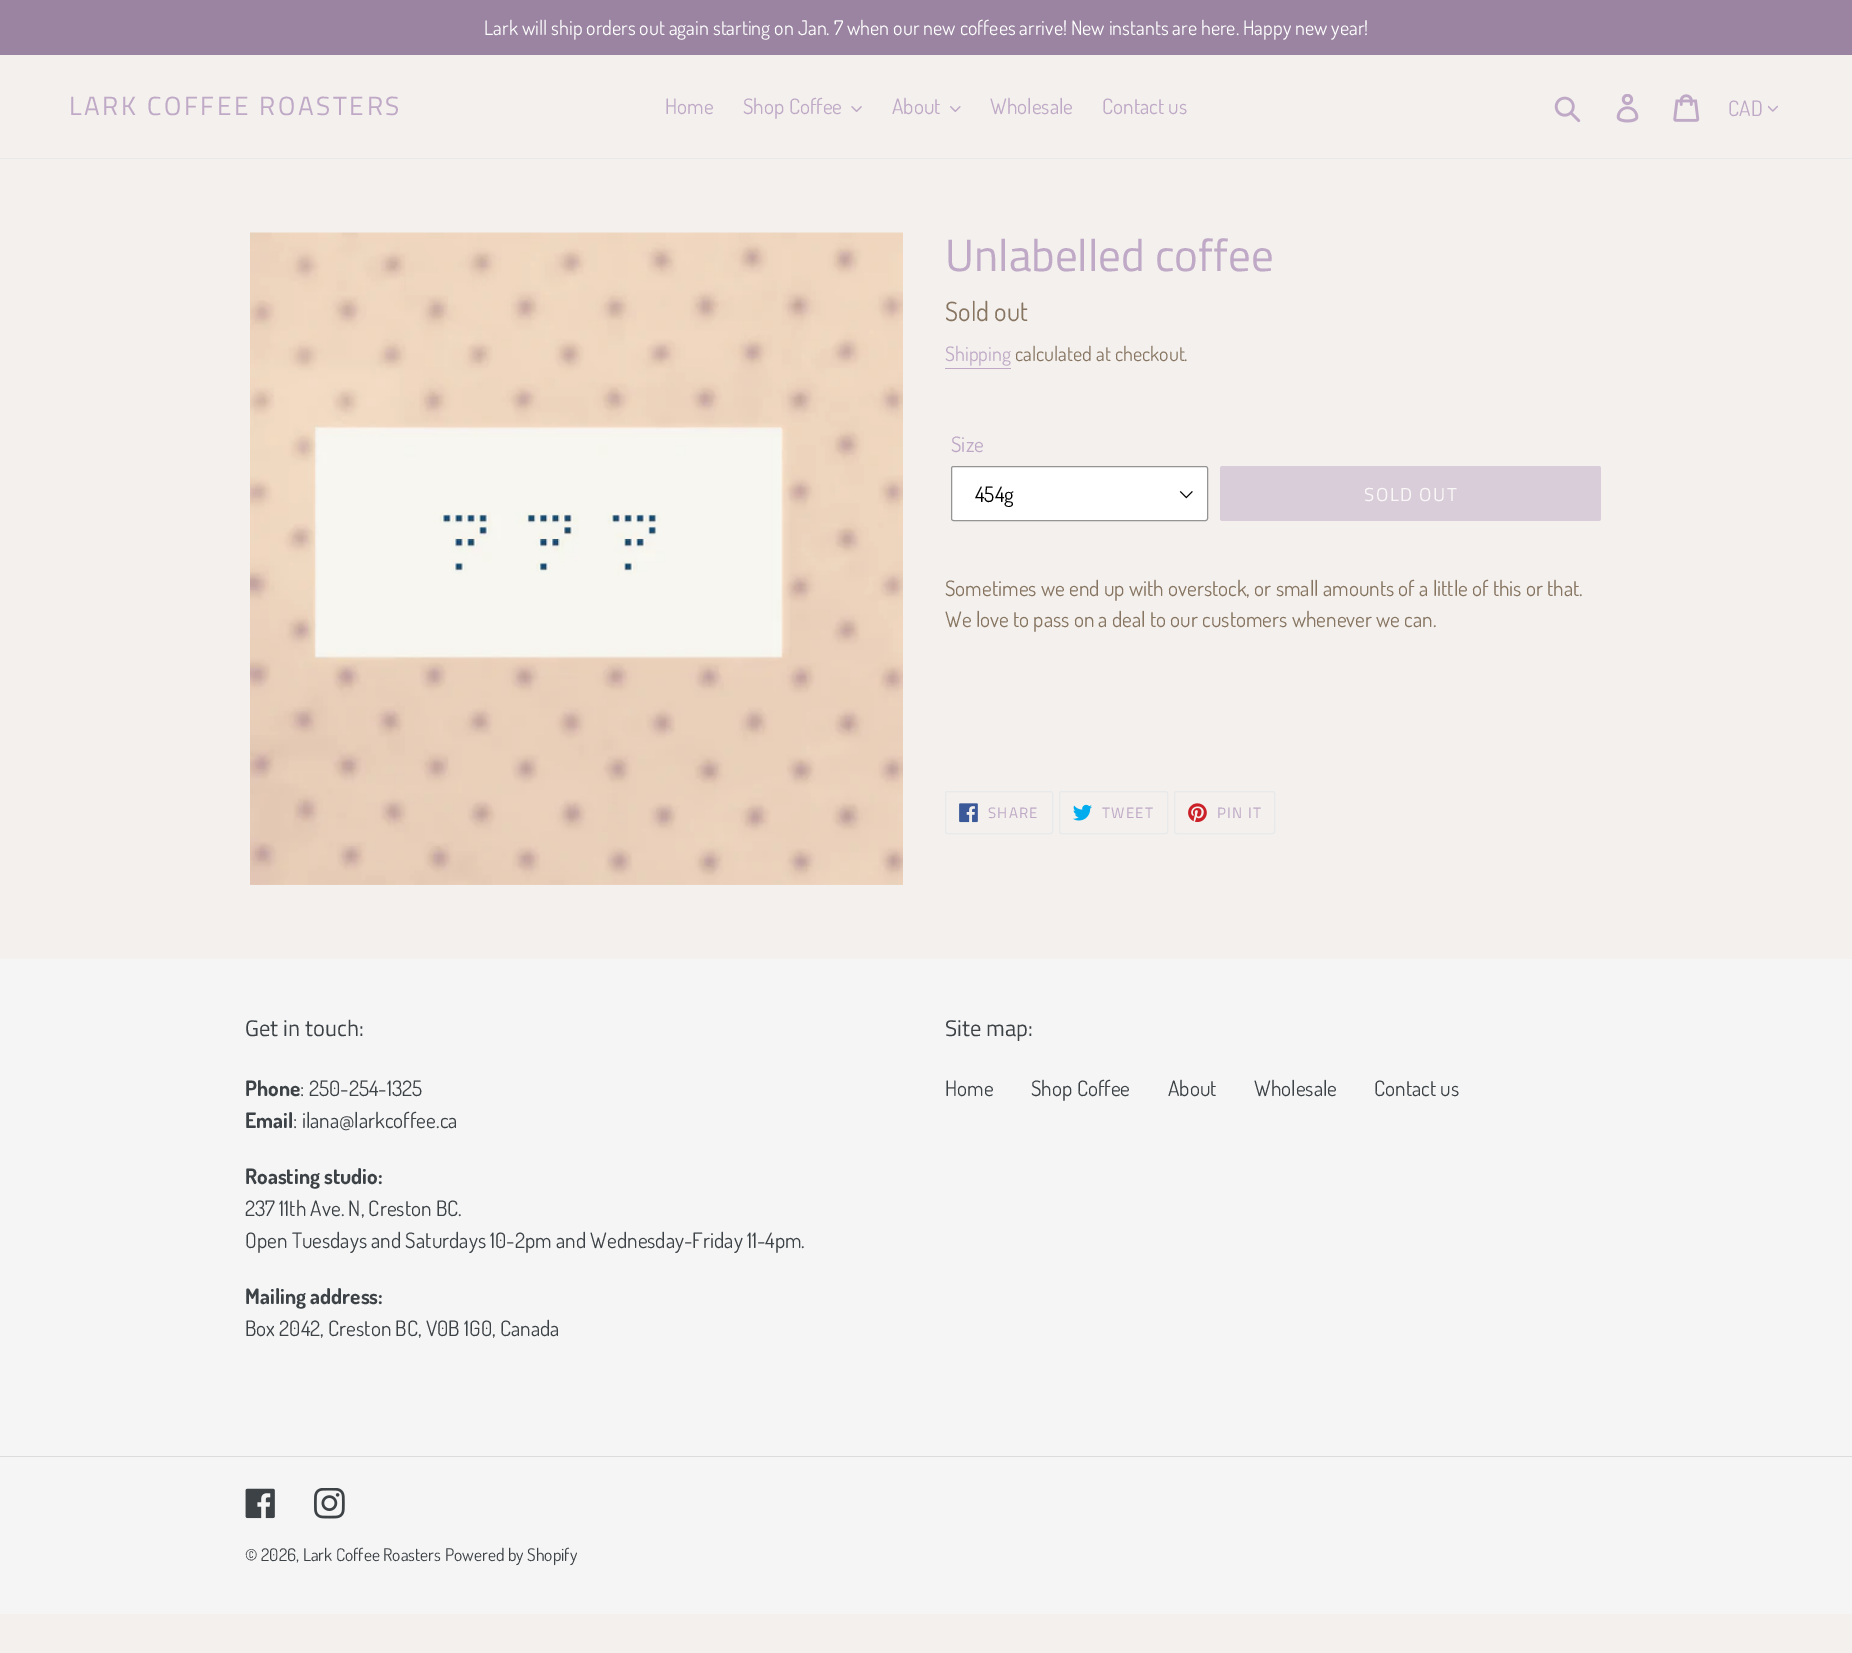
%!PS
<< /PageSize [1852 1653] >> setpagedevice
/m/moveto load def
/f/fill load def
/s/stroke load def
/C { dup -16 bitshift 255 div exch dup -8 bitshift 255 and 255 div exch 255 and 255 div setrgbcolor } def
/F { [ exch dup neg 0 0 3 -1 roll 0 0 ] selectfont } def
/T { moveto show } def
/R { rectfill } def
/Q { 5 dict begin { /r /h /w /y /x } { exch def } forall
  x r add y moveto x w add y 2 copy h add r arct x w add y h add x 1 index r arct
  x y h add x y r arct x y 2 copy exch w add exch r arct closepath end } def
/I { 5 dict begin { /h /w /y /x /name } { exch def } forall
  gsave x y translate w h scale
  w h 8 [w 0 0 h 0 0] name (r) file false 3 colorimage grestore end } def
0 1653 translate 1 -1 scale
4 setmiterlimit
16#F3F0ED C
0 0 1852 1653 R
16#9A84A1 C
0 0 1852 55 R
/Dosis-Regular 20 F
16#FFFFFF C
(Lark will ship orders out again starting on Jan. 7 when our new coffees arrive! New instants are here. Happy new year!) 484 35 T
16#E8E9EB C
0 158 1852 1 R
/TitilliumWeb-Regular 26.25 F
16#BFA9C6 C
69 115 m 2.6 0 (LARK COFFEE ROASTERS) ashow
/Dosis-Regular 21.25 F
(Home) 665 114 T
(Shop Coffee) 743 114 T
(1.rgb) 851 106 11 6 I
(About) 892 114 T
(2.rgb) 950 106 11 6 I
(Wholesale) 990 114 T
(Contact us) 1102 114 T
(3.rgb) 1554 96 27 27 I
(4.rgb) 1616 94 23 29 I
(5.rgb) 1673 94 27 28 I
(CAD) 1728 116 T
(6.rgb) 1768 105 10 7 I
(7.rgb) 250 232 653 653 I
/TitilliumWeb-Regular 45 F
(Unlabelled coffee) 945 271 T
/Dosis-Regular 26.5 F
16#877561 C
(Sold out) 945 321 T
/Dosis-Regular 20 F
16#BFA9C6 C
(Shipping) 945 361 T
945 368 66 1 R
16#877561 C
(calculated at checkout.) 1015 361 T
/Dosis-Regular 21.25 F
16#BFA9C6 C
(Size) 951 452 T
16#FFFFFF C
951 466 257 55 2.5 Q f
(8.rgb) 1179 491 14 8 I
16#949494 C
951.5 466.5 256 54 2 Q s
16#000000 C
(454g) 975 502 T
16#D9CDDA C
1220 466 381 55 2.5 Q f
/TitilliumWeb-Regular 18.75 F
16#F9F8F6 C
1364 501 m 1.5 0 (SOLD OUT) ashow
/Dosis-Regular 21.25 F
16#877561 C
(Sometimes we end up with overstock, or small amounts of a little of this or that.) 945 596 T
(We love to pass on a deal to our customers whenever we can.) 945 627 T
16#E8E9EB C
945.5 791.5 107 42 2 Q s
(9.rgb) 959 803 19 20 I
/TitilliumWeb-Regular 15 F
16#BFA9C6 C
988 818 m 1.25 0 (SHARE) ashow
16#E8E9EB C
1059.5 791.5 108 42 2 Q s
(10.rgb) 1073 804 19 17 I
16#BFA9C6 C
1102 818 m 1.25 0 (TWEET) ashow
16#E8E9EB C
1174.5 791.5 100 42 2 Q s
(11.rgb) 1188 803 19 20 I
16#BFA9C6 C
1217 818 m 1.25 0 (PIN IT) ashow
16#F5F5F5 C
0 959 1852 655 R
/TitilliumWeb-Regular 22.5 F
16#3D4246 C
(Get in touch:) 245 1036 T
/Dosis-Bold 21.25 F
(Phone) 245 1096 T
/Dosis-Regular 21.25 F
(: 250-254-1325) 300 1096 T
/Dosis-Bold 21.25 F
(Email) 245 1128 T
/Dosis-Regular 21.25 F
(: ilana@larkcoffee.ca) 293 1128 T
/Dosis-Bold 21.25 F
(Roasting studio:) 245 1184 T
/Dosis-Regular 21.25 F
(237 11th Ave. N, Creston BC.) 245 1216 T
(Open Tuesdays and Saturdays 10-2pm and Wednesday-Friday 11-4pm.) 245 1248 T
/Dosis-Bold 21.25 F
(Mailing address:) 245 1304 T
/Dosis-Regular 21.25 F
(Box 2042, Creston BC, V0B 1G0, Canada) 245 1336 T
/TitilliumWeb-Regular 22.5 F
(Site map:) 945 1036 T
/Dosis-Regular 21.25 F
(Home) 945 1096 T
(Shop Coffee) 1031 1096 T
(About) 1168 1096 T
(Wholesale) 1254 1096 T
(Contact us) 1374 1096 T
16#DCDCDC C
0 1456 1852 1 R
(12.rgb) 245 1488 30 31 I
(13.rgb) 314 1488 31 31 I
/Dosis-Regular 17.5 F
16#3D4246 C
(© 2026, Lark Coffee Roasters) 245 1561 T
(Powered by Shopify) 445 1561 T
showpage
